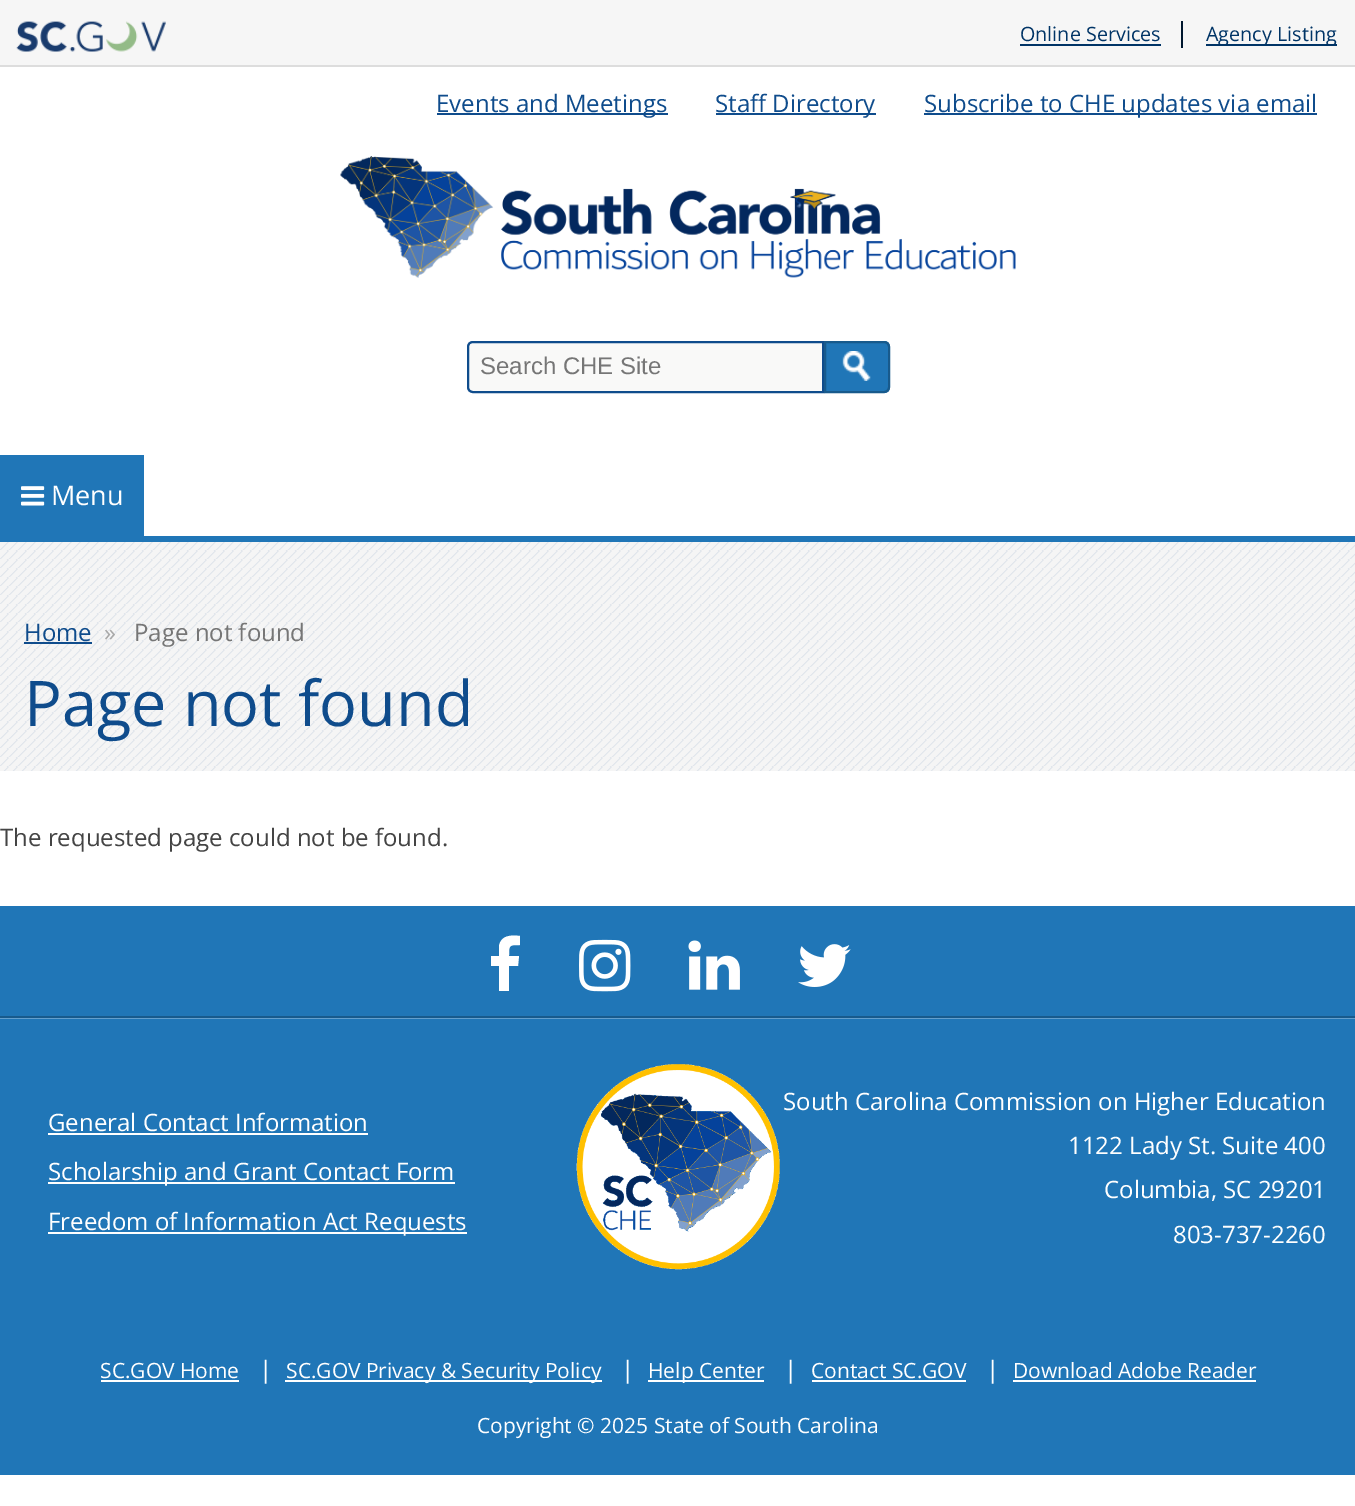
%!PS
<< /PageSize [1355 1506] >> setpagedevice
/m/moveto load def
/l/rlineto load def
/c/rcurveto load def
/z/closepath load def
/f/fill load def
/s/stroke load def
/q/gsave load def
/Q_/grestore load def
/w/setlinewidth load def
/C { dup -16 bitshift 255 div exch dup -8 bitshift 255 and 255 div exch 255 and 255 div setrgbcolor } def
/F { [ exch dup neg 0 0 3 -1 roll 0 0 ] selectfont } def
/T { moveto show } def
/R { rectfill } def
/I { 5 dict begin { /h /w /y /x /name } { exch def } forall
  gsave x y translate w h scale
  w h 8 [w 0 0 h 0 0] name (r) file false 3 colorimage grestore end } def
0 1506 translate 1 -1 scale
4 setmiterlimit
16#FFFFFF C
0 0 1355 1506 R
16#F6F6F6 C
0 0 1355 65 R
16#DDDDDD C
0 65 1355 2 R
(1.rgb) 16 21 150 31 I
/OpenSans-Regular 19.75 F
16#003466 C
(Online Services) 1020 41 T
16#00172E C
1181 21 2 27 R
16#003466 C
1020 44 141 2 R
1206 44 131 2 R
(Agency Listing) 1206 41 T
16#0F4C8C C
437 113 231 2 R
/OpenSans-Regular 24 F
(Events and Meetings) 436 112 T
716 113 160 2 R
(Staff Directory) 715 112 T
924 113 393 2 R
(Subscribe to CHE updates via email) 924 112 T
(2.rgb) 340 156 676 122 I
16#F9F9F8 C
473 342 m 350 0 l 0 50 l -350 0 l -3 0 -5 -2 -5 -5 c 0 -40 l 0 -3 2 -5 5 -5 c z q f Q_
16#0F4C8C C
2 w
s
/LiberationSans-Regular 24 F
16#767676 C
(Search CHE Site) 480 374 T
16#2076B7 C
824 341 m 60 0 l 3.5 0 6 2.5 6 6 c 0 40 l 0 3.5 -2.5 6 -6 6 c -60 0 l z f
(3.rgb) 842 351 29 30 I
16#185A8C C
825 342 m 59 0 l 3 0 5 2 5 5 c 0 40 l 0 3 -2 5 -5 5 c -59 0 l z s
16#2076B7 C
0 536 1355 6 R
0 455 144 81 R
(4.rgb) 21 486 24 20 I
/OpenSans-Regular 27 F
16#FFFFFF C
(Menu) 51 505 T
16#F5F5F5 C
0 542 1355 229 R
(5.rgb) 0 542 1355 229 I
/OpenSans-Regular 24 F
16#0F4C8C C
(Home) 24 641 T
24 642 68 2 R
16#A9A9A9 C
(») 104 641 T
16#767676 C
(Page not found) 134 641 T
/OpenSans-Regular 63 F
16#0F4C8C C
(Page not found) 24 726 T
/OpenSans-Regular 24 F
16#444444 C
(The requested page could not be found.) 0 846 T
16#2076B7 C
0 906 1355 569 R
16#FFFFFF C
520 936 m 0 9 l -11 0 -11 0 -11 11 c 10 0 l -1 10 l -9 0 l 0 25 l -10 0 l 0 -25 l -8 0 l 0 -10 l 8 0 l 0 -10 l 2 -11 12 -11 21 -10 c z f
(6.rgb) 579 939 52 53 I
(7.rgb) 688 940 52 50 I
(8.rgb) 798 944 53 43 I
(9.rgb) 576 1064 204 206 I
16#639FCD C
0 1018 1355 1 R
16#185A8C C
0 1016 1355 2 R
16#FFFFFF C
(General Contact Information) 48 1131 T
48 1133 320 2 R
48 1182 407 2 R
(Scholarship and Grant Contact Form) 48 1180 T
48 1232 419 2 R
(Freedom of Information Act Requests) 48 1230 T
(South Carolina Commission on Higher Education) 783 1110 T
(1122 Lady St. Suite 400) 1068 1154 T
(Columbia, SC 29201) 1104 1198 T
(803-737-2260) 1173 1243 T
/OpenSans-Regular 21 F
(SC.GOV Home) 100 1378 T
101 1380 138 2 R
/OpenSans-Regular 24 F
(|) 259 1378 T
285 1380 317 2 R
/OpenSans-Regular 21 F
(SC.GOV Privacy & Security Policy) 286 1378 T
/OpenSans-Regular 24 F
(|) 621 1378 T
648 1380 116 2 R
/OpenSans-Regular 21 F
(Help Center) 648 1378 T
/OpenSans-Regular 24 F
(|) 784 1378 T
/OpenSans-Regular 21 F
(Contact SC.GOV) 811 1378 T
812 1380 154 2 R
/OpenSans-Regular 24 F
(|) 986 1378 T
/OpenSans-Regular 21 F
(Download Adobe Reader) 1013 1378 T
1013 1380 243 2 R
(Copyright © 2025 State of South Carolina) 477 1433 T
showpage
